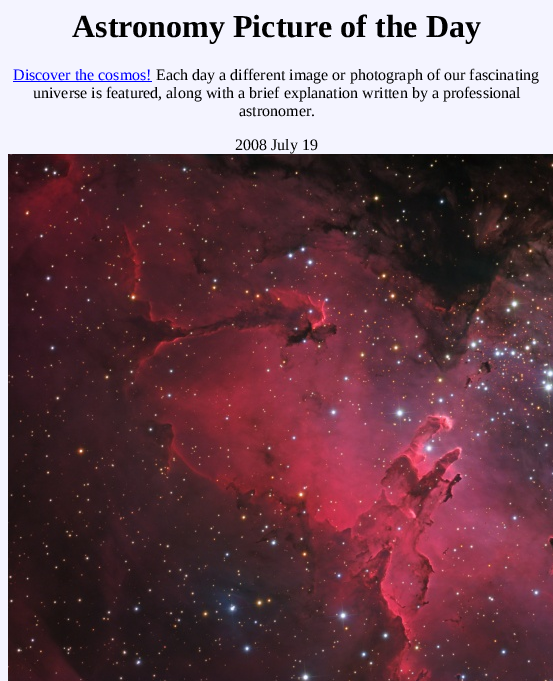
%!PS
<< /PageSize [553 681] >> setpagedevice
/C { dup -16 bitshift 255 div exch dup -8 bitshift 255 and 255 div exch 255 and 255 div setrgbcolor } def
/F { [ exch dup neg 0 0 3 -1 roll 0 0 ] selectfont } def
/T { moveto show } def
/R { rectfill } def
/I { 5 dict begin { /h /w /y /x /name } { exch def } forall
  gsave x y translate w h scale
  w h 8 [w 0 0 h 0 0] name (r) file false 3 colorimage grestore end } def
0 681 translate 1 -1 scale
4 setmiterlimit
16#F4F4FF C
0 0 553 681 R
/LiberationSerif-Bold 32 F
16#000000 C
(Astronomy Picture of the Day) 72 37 T
/LiberationSerif-Regular 16 F
16#0000FF C
(Discover the cosmos!) 13 80 T
13 81 139 1 R
16#000000 C
(Each day a different image or photograph of our fascinating) 156 80 T
(universe is featured, along with a brief explanation written by a professional) 33 98 T
(astronomer.) 239 116 T
(2008 July 19) 235 150 T
(1.rgb) 8 154 545 527 I
showpage
